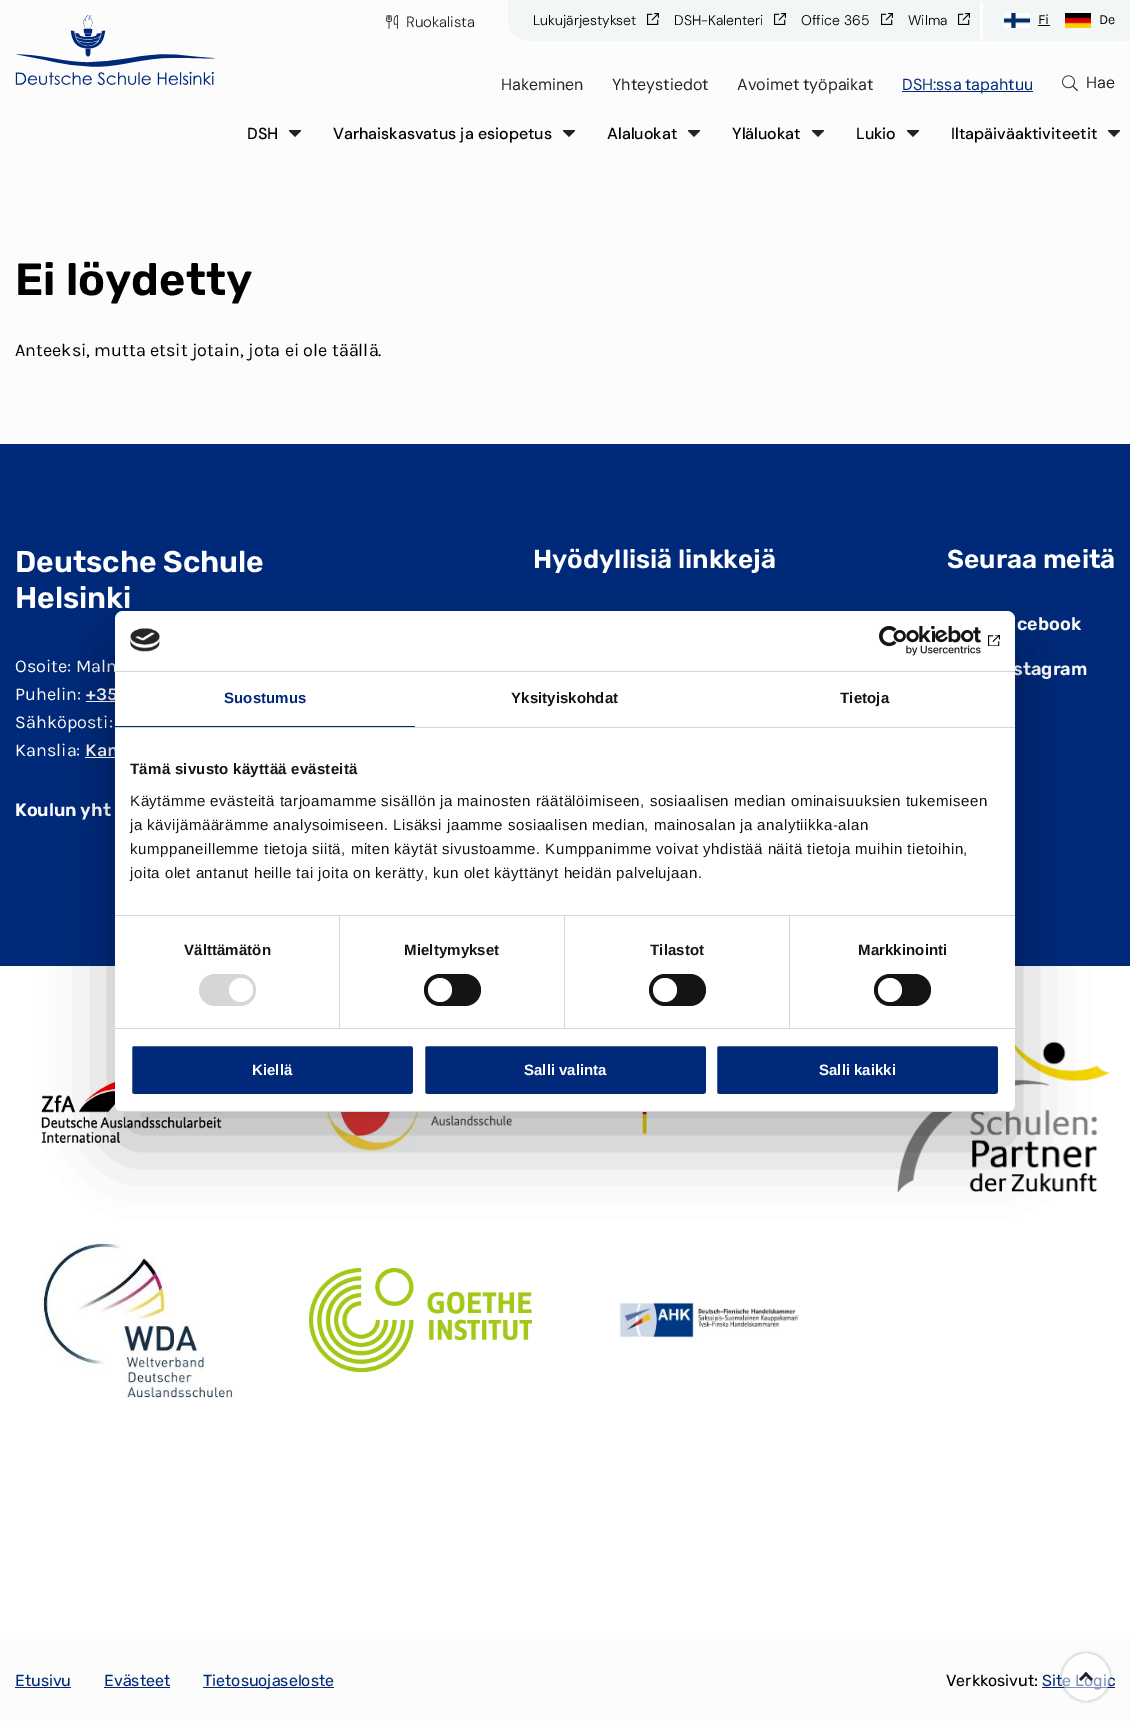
%!PS
<< /PageSize [1130 1721] /PageUsesTransparency true >> setpagedevice
/m/moveto load def
/l/rlineto load def
/c/rcurveto load def
/z/closepath load def
/f/fill load def
/s/stroke load def
/q/gsave load def
/Q_/grestore load def
/w/setlinewidth load def
/C { dup -16 bitshift 255 div exch dup -8 bitshift 255 and 255 div exch 255 and 255 div setrgbcolor } def
/F { [ exch dup neg 0 0 3 -1 roll 0 0 ] selectfont } def
/T { moveto show } def
/R { rectfill } def
/A { dup .setfillconstantalpha .setstrokeconstantalpha } def
/O { newpath 0 360 arc closepath } def
/Q { 5 dict begin { /r /h /w /y /x } { exch def } forall
  x r add y moveto x w add y 2 copy h add r arct x w add y h add x 1 index r arct
  x y h add x y r arct x y 2 copy exch w add exch r arct closepath end } def
/S { 12 dict begin { /a /b /q /h /w /y /x } { exch def } forall gsave /was 0 def
  9 -2 -9 { dup b mul 4 div /e exch def 1 sub .425 mul 2.718 exch exp 1 add a .99 .min exch div /now exch def
    1 1 now sub 1 was sub div sub A /was now def
    w h .min e 2 mul add 0 gt { x e sub y e sub w e 2 mul add h e 2 mul add
      q e add b .6 mul add w h .min 2 div e add .min 0 .max Q fill } if } for grestore end } def
/I { 5 dict begin { /h /w /y /x /name } { exch def } forall
  gsave x y translate w h scale
  w h 8 [w 0 0 h 0 0] name (r) file false 3 colorimage grestore end } def
0 .pushpdf14devicefilter
0 1721 translate 1 -1 scale
4 setmiterlimit
16#FCFCFC C
0 0 1130 1721 R
(1.rgb) 15 15 200 70 I
(2.rgb) 386 15 12 14 I
/DMSans-Light 15 F
16#232323 C
(Ruokalista) 406 27 T
16#F2F6F7 C
508 0 m 622 0 l 0 41 l -602 0 l -11 0 -20 -9 -20 -20 c z f
/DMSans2-Light 14 F
16#000000 C
(Lukujärjestykset) 533 25 T
(3.rgb) 647 13 12 12 I
(DSH-Kalenteri) 674 25 T
(3.rgb) 774 13 12 12 I
(Office 365) 801 25 T
(3.rgb) 881 13 12 12 I
(Wilma) 908 25 T
(3.rgb) 958 13 12 12 I
16#FFFFFF C
980 2 3 37 R
(4.rgb) 1004 13 26 15 I
/Karla-Regular 14 F
16#000000 C
(Fi) 1038 24 T
1038 25 12 1 R
(5.rgb) 1065 13 26 15 I
(De) 1099 24 T
/DMSans-Regular 16 F
16#232323 C
(Hakeminen) 501 90 T
(Yhteystiedot) 612 90 T
737 90 m -1 0 32 (Avoimet työpaikat) widthshow
16#00297A C
902 91 131 1 R
902 90 m -1 0 32 (DSH:ssa tapahtuu) widthshow
(6.rgb) 1062 75 16 16 I
16#232323 C
(Hae) 1086 88 T
/DMSans-Medium 16 F
16#000000 C
(DSH) 247 139 T
16#232323 C
289 130 12 1 R
289 131 m 12 0 l -6 6 l z f
/DMSans2-Medium 16 F
16#000000 C
(Varhaiskasvatus ja esiopetus) 333 139 T
16#232323 C
563 130 12 1 R
563 131 m 12 0 l -6 6 l z f
16#000000 C
(Alaluokat) 607 139 T
16#232323 C
688 130 12 1 R
688 131 m 12 0 l -6 6 l z f
16#000000 C
(Yläluokat) 732 139 T
16#232323 C
812 130 12 1 R
812 131 m 12 0 l -6 6 l z f
16#000000 C
(Lukio) 856 139 T
16#232323 C
907 130 12 1 R
907 131 m 12 0 l -6 6 l z f
16#000000 C
(Iltapäiväaktiviteetit) 951 139 T
16#232323 C
1108 130 12 1 R
1108 131 m 12 0 l -6 6 l z f
/Rubik-SemiBold 45 F
16#000000 C
(Ei löydetty) 15 295 T
/Karla-Regular 18 F
(Anteeksi, mutta etsit jotain, jota ei ole täällä.) 15 356 T
16#00297A C
0 444 1130 522 R
/Rubik-SemiBold 30 F
16#FFFFFF C
(Deutsche Schule) 15 572 T
(Helsinki) 15 608 T
/Karla-Regular 18 F
(Osoite: Malm) 15 672 T
(Puhelin:) 15 700 T
/Karla-SemiBold 18 F
(+35) 86 700 T
86 701 29 1 R
/Karla-Regular 18 F
(Sähköposti:) 15 728 T
(Kanslia:) 15 756 T
/Karla-SemiBold 18 F
(Kan) 85 756 T
85 757 30 1 R
/Rubik-SemiBold 18 F
(Koulun yht) 15 816 T
/Rubik-SemiBold 26 F
(Hyödyllisiä linkkejä) 533 568 T
(Seuraa meitä) 947 568 T
/Rubik-SemiBold 18 F
(cebook) 1017 630 T
(stagram) 1013 675 T
0 966 1130 673 R
(7.rgb) 41 1074 181 69 I
(8.rgb) 323 1112 189 43 I
(9.rgb) 613 1112 182 23 I
(10.rgb) 886 1016 223 176 I
(11.rgb) 38 1239 200 159 I
(12.rgb) 309 1268 223 104 I
(13.rgb) 619 1302 180 37 I
/Rubik-Regular 16 F
16#00297A C
(Etusivu) 15 1686 T
15 1687 56 1 R
(Evästeet) 104 1686 T
104 1687 66 1 R
203 1687 131 1 R
(Tietosuojaseloste) 203 1686 T
16#000000 C
(Verkkosivut:) 946 1686 T
16#00297A C
1042 1687 73 1 R
(Site Logic) 1042 1686 T
16#000000 C
115 643 900 501 8 34 .3 S
16#FFFFFF C
115 611 900 501 8 Q f
16#D6D6D6 C
115 671 900 1 R
(14.rgb) 130 628 30 24 I
(15.rgb) 879 626 102 30 I
(16.rgb) 988 635 12 11 I
115 727 900 1 R
16#00297A C
115 726 300 1 R
/LiberationSans-Bold 15 F
224 703 m .1 0 (Suostumus) ashow
16#141414 C
511 703 m .1 0 (Yksityiskohdat) ashow
840 703 m .1 0 (Tietoja) ashow
16#D6D6D6 C
115 915 900 1 R
16#141414 C
130 774 m .25 0 (Tämä sivusto käyttää evästeitä) ashow
/LiberationSans-Regular 15 F
130 806 m .5 0 (Käytämme evästeitä tarjoamamme sisällön ja mainosten räätälöimiseen, sosiaalisen median ominaisuuksien tukemiseen) ashow
130 830 m .5 0 (ja kävijämäärämme analysoimiseen. Lisäksi jaamme sosiaalisen median, mainosalan ja analytiikka-alan) ashow
130 854 m .5 0 (kumppaneillemme tietoja siitä, miten käytät sivustoamme. Kumppanimme voivat yhdistää näitä tietoja muihin tietoihin,) ashow
130 878 m .5 0 (joita olet antanut heille tai joita on kerätty, kun olet käyttänyt heidän palvelujaan.) ashow
16#D6D6D6 C
115 1028 900 1 R
339 916 1 112 R
/LiberationSans-Bold 15 F
16#141414 C
184 955 m .1 0 (Välttämätön) ashow
16#D6D6D6 C
199 974 57 32 16 Q f
16#FFFFFF C
241 990 12 O f
16#D6D6D6 C
564 916 1 112 R
16#141414 C
404 955 m .1 0 (Mieltymykset) ashow
424 974 57 32 16 Q f
16#FFFFFF C
440 990 12 O f
16#D6D6D6 C
789 916 1 112 R
16#141414 C
650 955 m .1 0 (Tilastot) ashow
649 974 57 32 16 Q f
16#FFFFFF C
665 990 12 O f
16#141414 C
858 955 m .1 0 (Markkinointi) ashow
874 974 57 32 16 Q f
16#FFFFFF C
890 990 12 O f
q
115 611 900 501 8 Q clip newpath
16#D6D6D6 C
115 1111 900 1 R
Q_
16#00297A C
131 1045 283 50 3 Q q f Q_
16#FFFFFF C
2 w
s
(Kiellä) 252 1075 T
16#00297A C
424 1045 283 50 3 Q q f Q_
16#FFFFFF C
s
(Salli valinta) 524 1075 T
16#00297A C
716 1045 283 50 3 Q q f Q_
16#FFFFFF C
s
(Salli kaikki) 819 1075 T
q
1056 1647 m 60 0 l 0 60 l -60 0 l z 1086 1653 m 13.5 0 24 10.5 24 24 c 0 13.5 -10.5 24 -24 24 c -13.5 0 -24 -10.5 -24 -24 c 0 -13.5 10.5 -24 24 -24 c z eoclip newpath
16#000000 C
1062 1653 48 48 24 1.5 .3 S
Q_
0.5 A
1086 1677 24 O f
1 A
16#232323 C
1086 1672 m 7 7 l -2 2 l -7 -7 l z f
1086 1672 m 2 2 l -7 7 l -2 -2 l z f
.poppdf14devicefilter showpage
